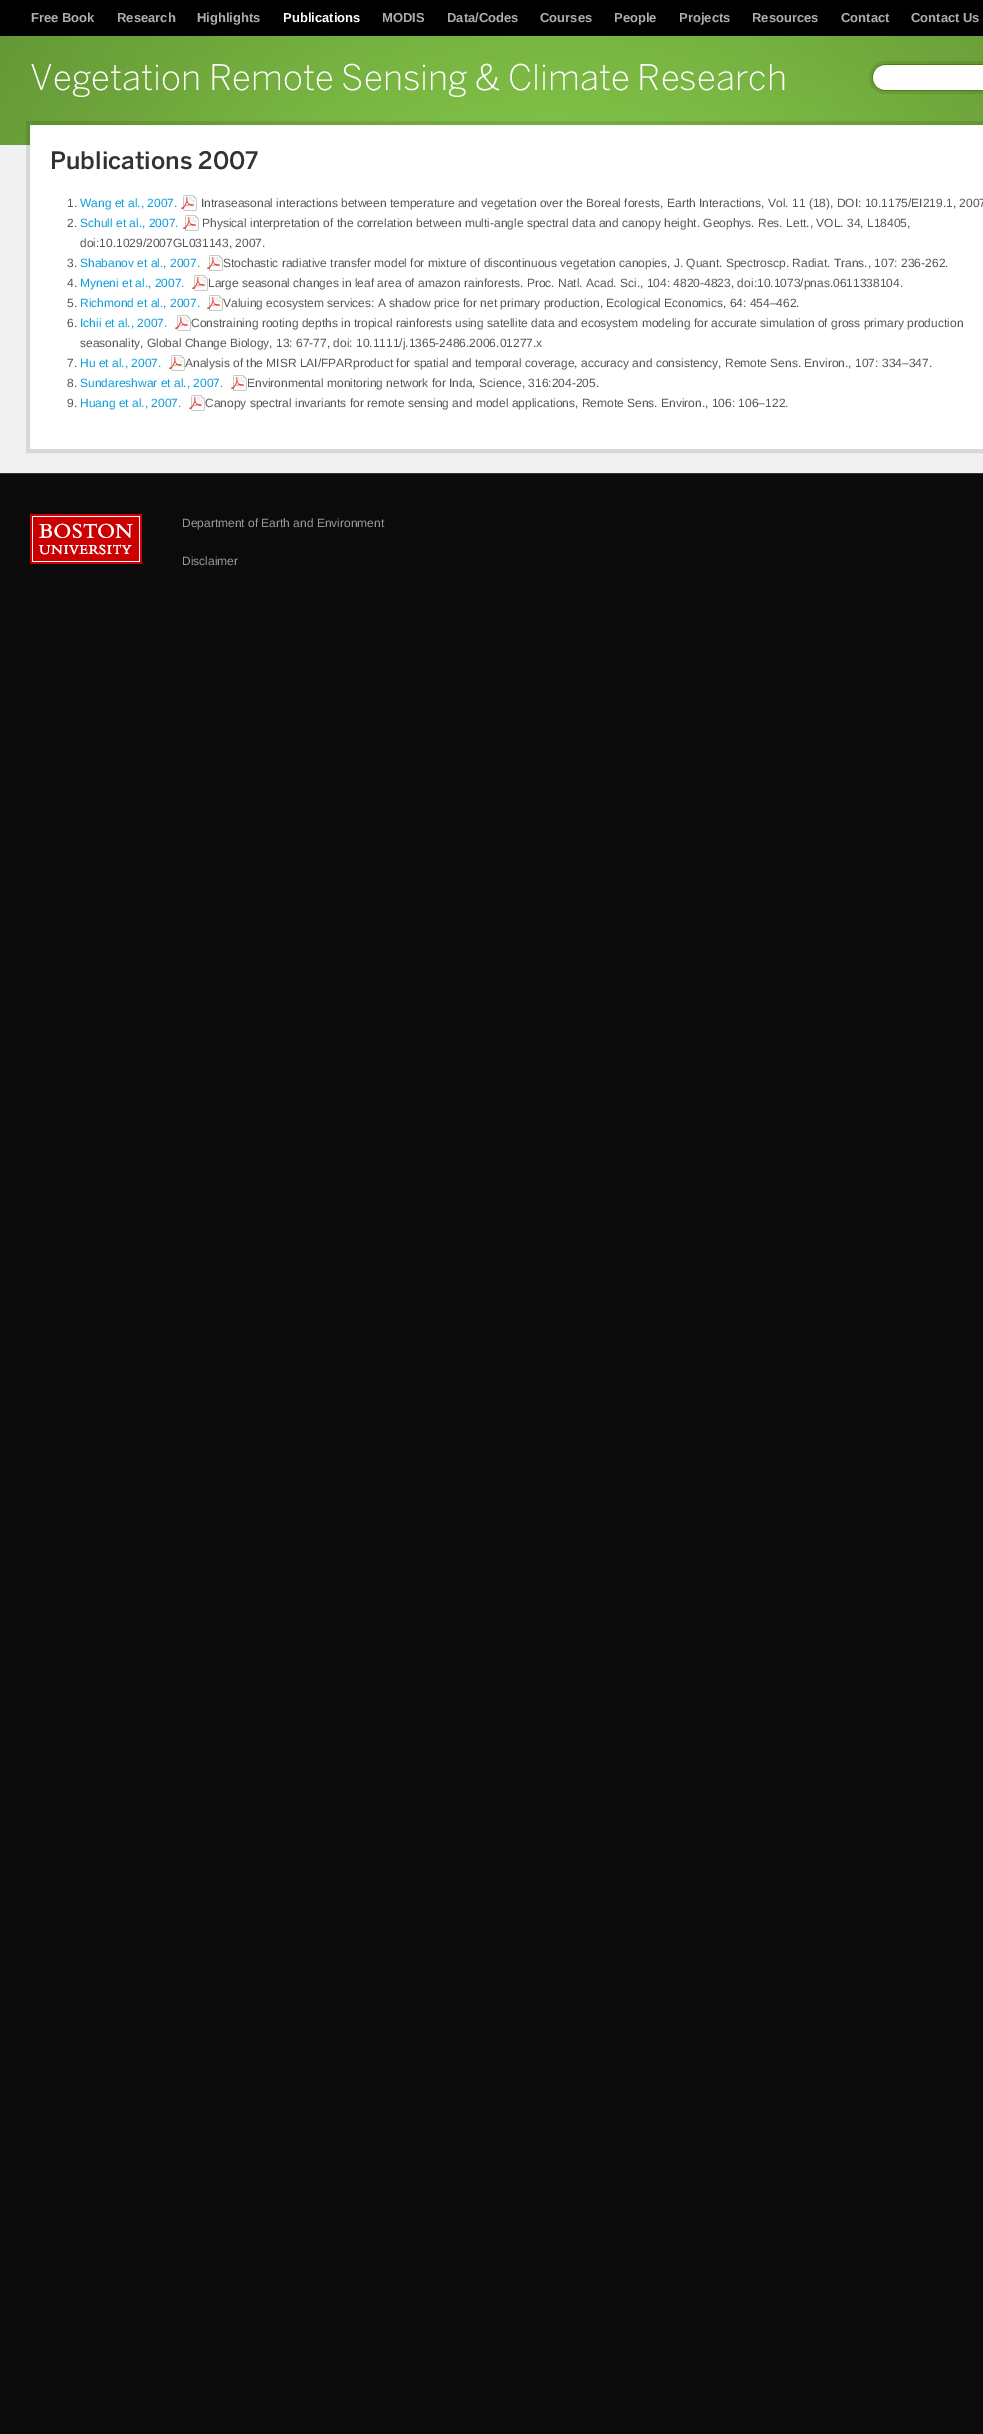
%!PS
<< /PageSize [983 2434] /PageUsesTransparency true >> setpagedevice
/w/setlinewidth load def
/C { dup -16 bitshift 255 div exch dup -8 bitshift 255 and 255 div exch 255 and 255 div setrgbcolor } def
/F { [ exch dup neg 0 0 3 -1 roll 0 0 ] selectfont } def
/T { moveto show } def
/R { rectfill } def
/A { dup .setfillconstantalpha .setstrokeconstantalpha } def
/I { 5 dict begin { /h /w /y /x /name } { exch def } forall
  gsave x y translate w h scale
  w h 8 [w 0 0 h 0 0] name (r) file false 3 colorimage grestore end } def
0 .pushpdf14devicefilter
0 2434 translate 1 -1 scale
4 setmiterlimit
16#0B0B0B C
0 0 983 2434 R
16#F1F1F1 C
0 145 983 328 R
(1.rgb) 0 0 983 145 I
/LiberationSans-Bold 13 F
16#A9B0AD C
(Free Book) 31 22 T
(Research) 117 22 T
(Highlights) 197 22 T
16#FFFFFF C
(Publications) 283 22 T
16#A9B0AD C
(MODIS) 382 22 T
(Data/Codes) 447 22 T
(Courses) 540 22 T
(People) 614 22 T
(Projects) 679 22 T
(Resources) 752 22 T
(Contact) 841 22 T
(Contact Us) 911 22 T
/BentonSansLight-Light 35 F
16#FFFFFF C
(Vegetation Remote Sensing & Climate Research) 30 90 T
(2.rgb) 869 61 114 33 I
30 125 953 324 R
0.1 A
16#000000 C
4 w
28 123 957 328 rectstroke
/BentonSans-Medium 24 F
1 A
16#323232 C
(Publications 2007) 50 169 T
/LiberationSans-Regular 12 F
16#565656 C
(1.) 67 207 T
16#0C9CD8 C
(Wang et al., 2007.) 80 207 T
(3.rgb) 181 195 16 16 I
16#565656 C
(Intraseasonal interactions between temperature and vegetation over the Boreal forests, Earth Interactions, Vol. 11 \(18\), DOI: 10.1175/EI219.1, 2007) 201 207 T
(2.) 67 227 T
16#0C9CD8 C
(Schull et al., 2007.) 80 227 T
(3.rgb) 183 215 16 16 I
16#565656 C
(Physical interpretation of the correlation between multi-angle spectral data and canopy height. Geophys. Res. Lett., VOL. 34, L18405,) 202 227 T
(doi:10.1029/2007GL031143, 2007.) 80 247 T
(3.) 67 267 T
16#0C9CD8 C
(Shabanov et al., 2007.) 80 267 T
(3.rgb) 207 255 16 16 I
16#565656 C
(Stochastic radiative transfer model for mixture of discontinuous vegetation canopies, J. Quant. Spectroscp. Radiat. Trans., 107: 236-262.) 223 267 T
(4.) 67 287 T
16#0C9CD8 C
(Myneni et al., 2007.) 80 287 T
(3.rgb) 192 275 16 16 I
16#565656 C
(Large seasonal changes in leaf area of amazon rainforests. Proc. Natl. Acad. Sci., 104: 4820-4823, doi:10.1073/pnas.0611338104.) 208 287 T
(5.) 67 307 T
16#0C9CD8 C
(Richmond et al., 2007.) 80 307 T
(3.rgb) 207 295 16 16 I
16#565656 C
(Valuing ecosystem services: A shadow price for net primary production, Ecological Economics, 64: 454–462.) 223 307 T
(6.) 67 327 T
16#0C9CD8 C
(Ichii et al., 2007.) 80 327 T
(3.rgb) 175 315 16 16 I
16#565656 C
(Constraining rooting depths in tropical rainforests using satellite data and ecosystem modeling for accurate simulation of gross primary production) 191 327 T
(seasonality, Global Change Biology, 13: 67-77, doi: 10.1111/j.1365-2486.2006.01277.x) 80 347 T
(7.) 67 367 T
16#0C9CD8 C
(Hu et al., 2007.) 80 367 T
(3.rgb) 169 355 16 16 I
16#565656 C
(Analysis of the MISR LAI/FPARproduct for spatial and temporal coverage, accuracy and consistency, Remote Sens. Environ., 107: 334–347.) 185 367 T
(8.) 67 387 T
16#0C9CD8 C
(Sundareshwar et al., 2007.) 80 387 T
(3.rgb) 231 375 16 16 I
16#565656 C
(Environmental monitoring network for Inda, Science, 316:204-205.) 247 387 T
(9.) 67 407 T
16#0C9CD8 C
(Huang et al., 2007.) 80 407 T
(3.rgb) 189 395 16 16 I
16#565656 C
(Canopy spectral invariants for remote sensing and model applications, Remote Sens. Environ., 106: 106–122.) 205 407 T
16#333333 C
0 473 983 1 R
(4.rgb) 30 514 112 50 I
16#939B9F C
(Department of Earth and Environment) 182 527 T
(Disclaimer) 182 565 T
.poppdf14devicefilter showpage
